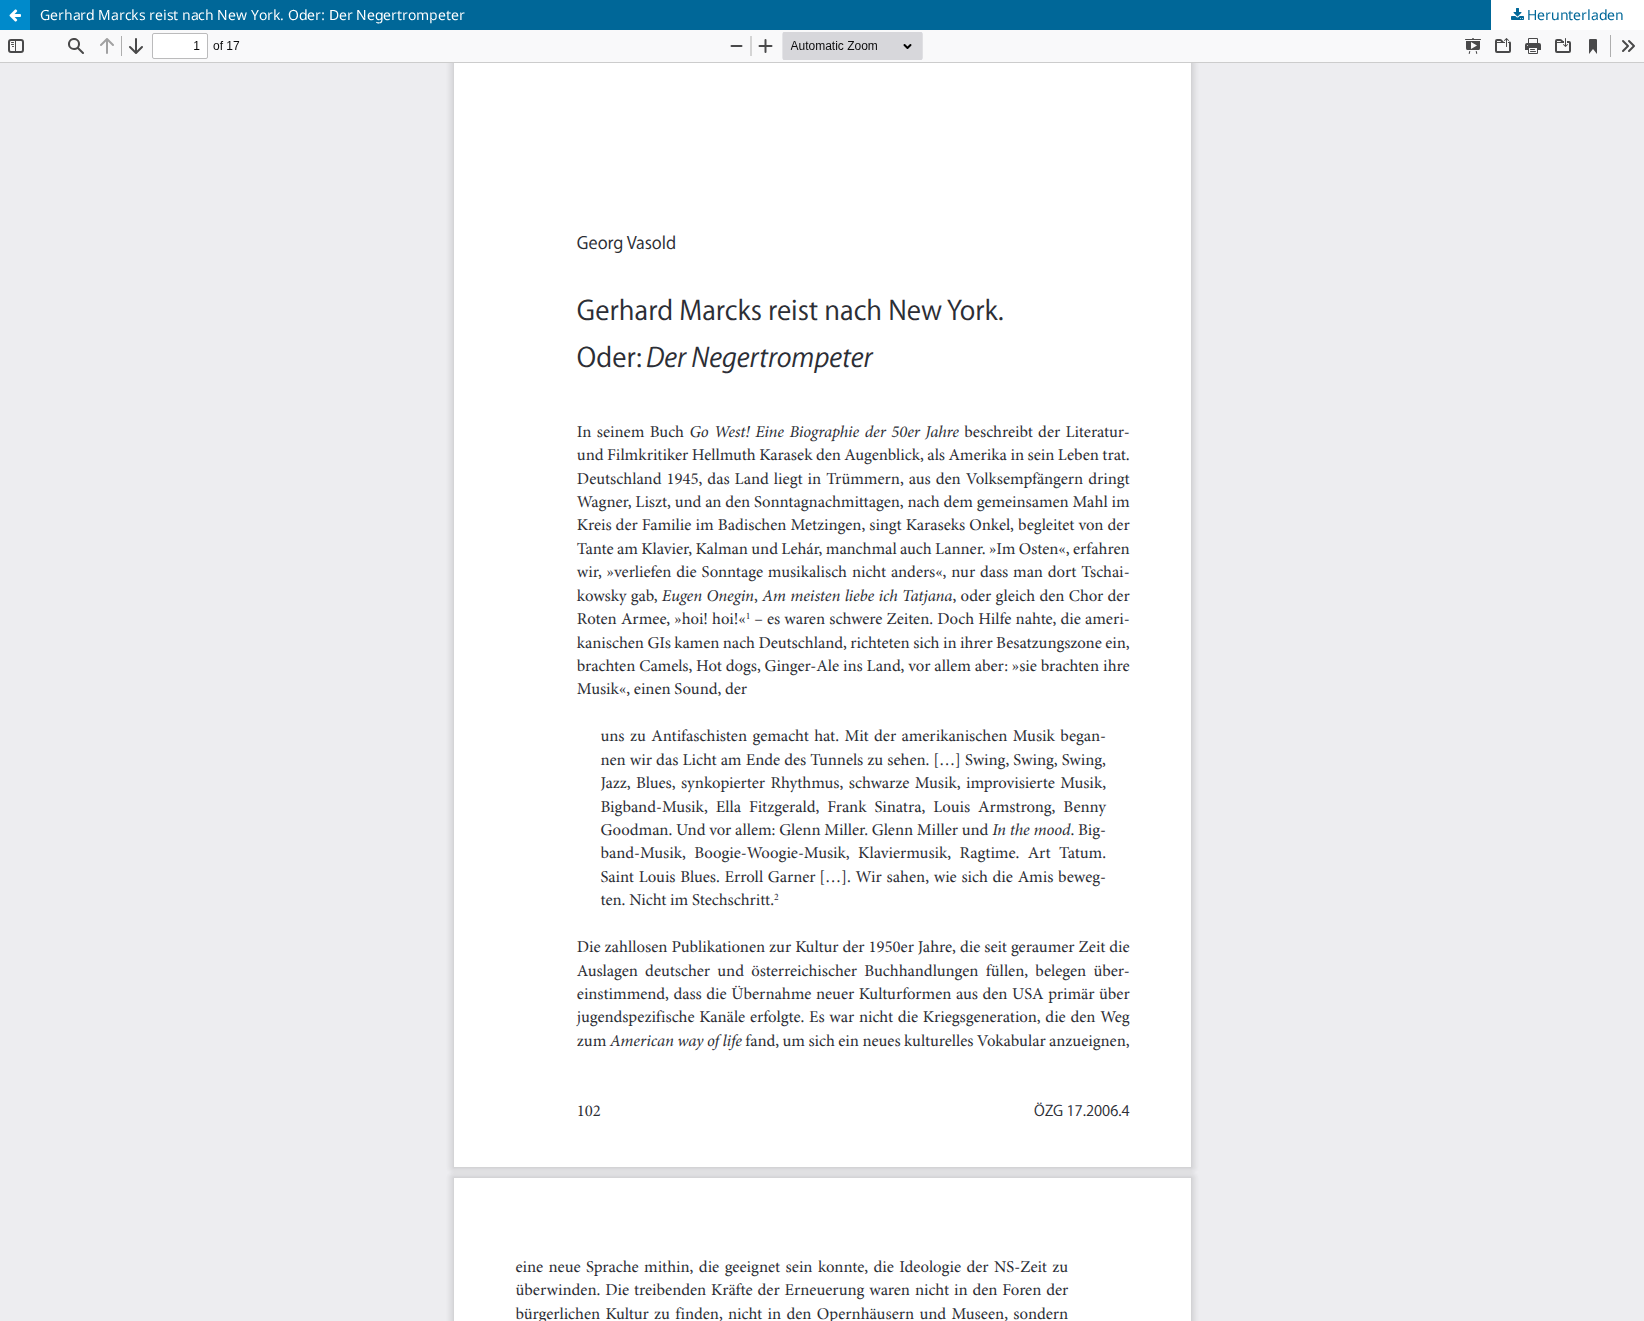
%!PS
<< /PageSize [1644 1321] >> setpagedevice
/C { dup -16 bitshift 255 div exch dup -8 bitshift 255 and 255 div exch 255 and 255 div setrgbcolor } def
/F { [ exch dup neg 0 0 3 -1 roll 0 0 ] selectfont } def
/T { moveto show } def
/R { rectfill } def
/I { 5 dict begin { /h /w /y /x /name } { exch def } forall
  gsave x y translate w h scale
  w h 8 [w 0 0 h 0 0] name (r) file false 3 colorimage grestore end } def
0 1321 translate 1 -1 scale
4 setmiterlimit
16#FFFFFF C
0 0 1644 1321 R
16#006798 C
30 0 1461 30 R
16#008ACB C
0 0 30 30 R
(1.rgb) 9 9 12 13 I
/NotoSans-Regular 14 F
16#FFFFFF C
(Gerhard Marcks reist nach New York. Oder: Der Negertrompeter) 40 20 T
(2.rgb) 1511 8 13 12 I
16#006798 C
(Herunterladen) 1527 20 T
(3.rgb) 0 30 1644 1291 I
showpage
